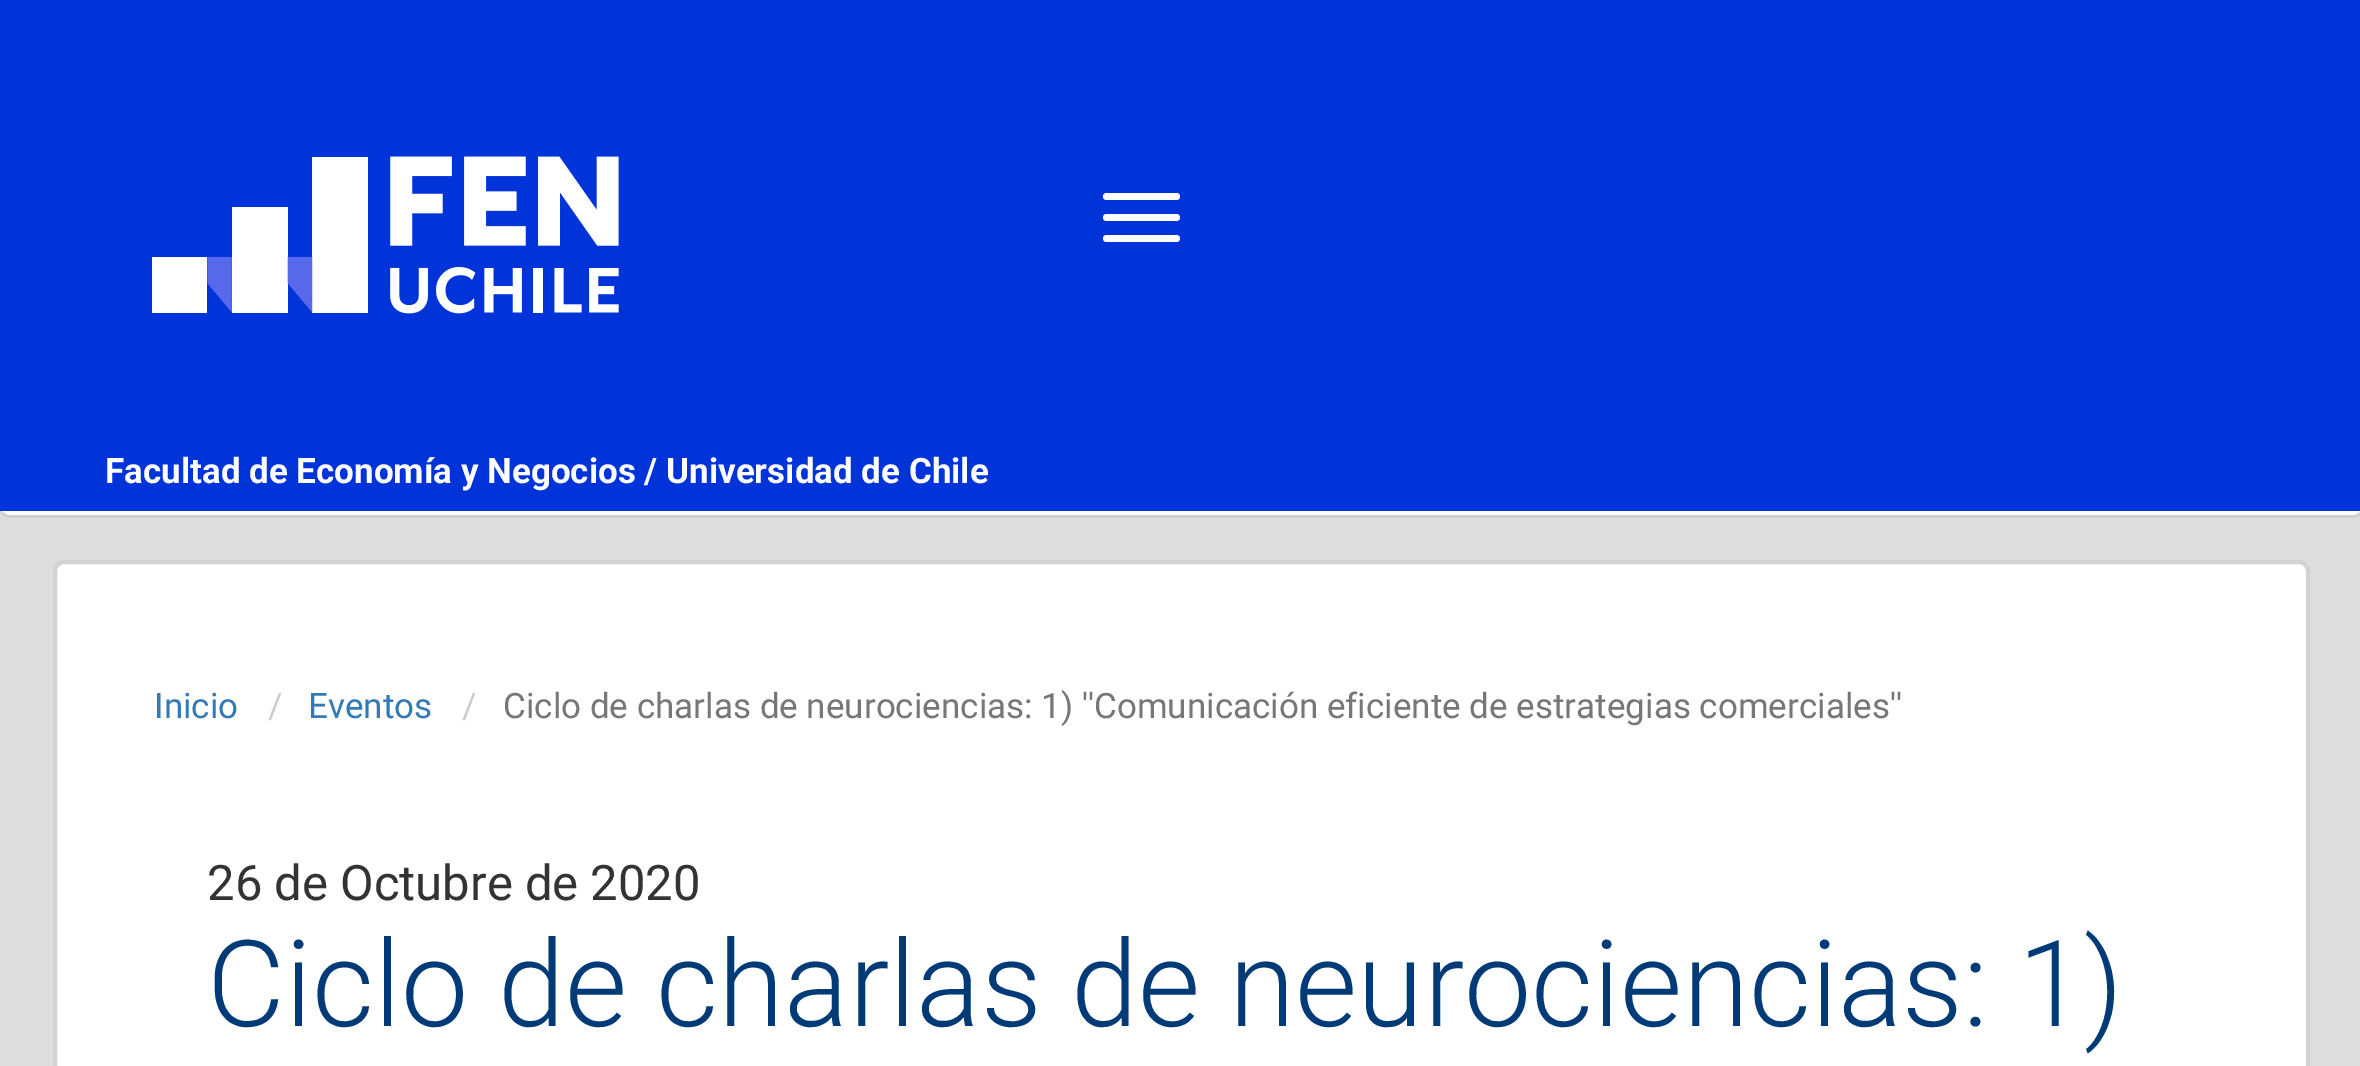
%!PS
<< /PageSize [2360 1066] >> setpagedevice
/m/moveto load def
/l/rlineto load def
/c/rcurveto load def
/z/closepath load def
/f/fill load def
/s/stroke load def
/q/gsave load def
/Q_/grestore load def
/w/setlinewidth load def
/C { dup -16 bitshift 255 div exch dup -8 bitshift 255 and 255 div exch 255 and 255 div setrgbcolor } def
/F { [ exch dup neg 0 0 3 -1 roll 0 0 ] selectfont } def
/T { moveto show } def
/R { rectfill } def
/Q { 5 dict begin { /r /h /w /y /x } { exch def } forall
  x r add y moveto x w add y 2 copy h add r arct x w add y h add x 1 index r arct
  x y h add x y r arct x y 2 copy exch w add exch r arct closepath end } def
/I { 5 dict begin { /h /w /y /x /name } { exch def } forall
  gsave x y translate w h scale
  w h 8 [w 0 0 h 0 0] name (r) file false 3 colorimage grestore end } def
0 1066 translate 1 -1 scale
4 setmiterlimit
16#DDDDDD C
0 0 2360 1066 R
16#CFCFCF C
0 504 m 0 3 l 0 6 5 11 11 11 c 2341 0 l 6 0 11 -5 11 -11 c 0 -492 l -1 -3 l 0 492 l 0 6 -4 10 -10 10 c -2342 0 l -5 0 -10 -4 -10 -10 c z f
16#FFFFFF C
0 0 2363 515 11 Q f
16#0034D9 C
0 0 2360 511 R
(1.rgb) 152 156 467 158 I
16#FFFFFF C
1103 193 77 7 3.5 Q f
1103 214 77 7 3.5 Q f
1103 235 77 7 3.5 Q f
/Roboto-Bold 35 F
(Facultad de Economía y Negocios / Universidad de Chile) 105 483 T
55 562 2253 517 9 Q q f Q_
16#D2D2D2 C
4 w
s
/Roboto-Regular 35 F
16#337AB7 C
(Inicio) 154 718 T
16#CCCCCC C
(/) 268 718 T
16#337AB7 C
(Eventos) 308 718 T
16#CCCCCC C
(/) 462 718 T
16#777777 C
(Ciclo de charlas de neurociencias: 1\) ''Comunicación eficiente de estrategias comerciales'') 503 718 T
/Roboto-Regular 49 F
16#333333 C
(26 de Octubre de 2020) 207 900 T
/Roboto-Light 120.25 F
16#003A77 C
(Ciclo de charlas de neurociencias: 1\)) 207 1026 T
showpage
